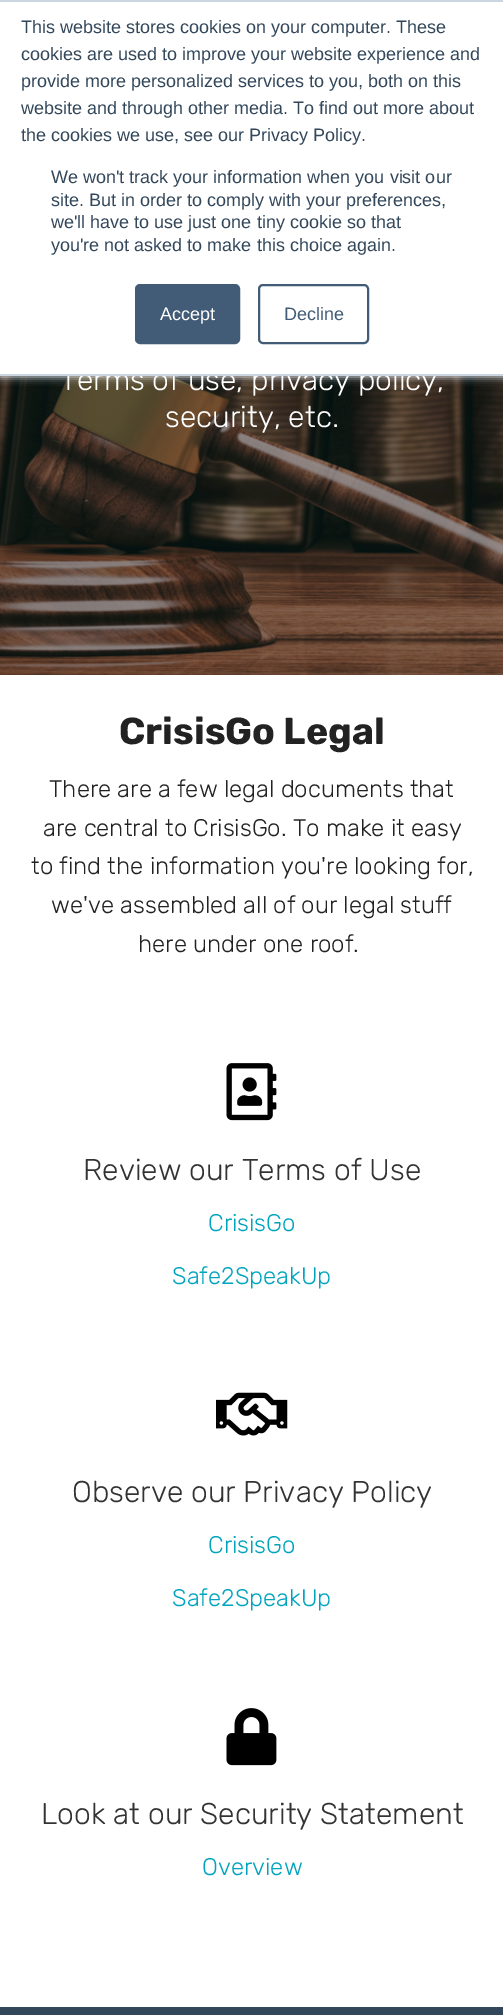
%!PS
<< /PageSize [503 2015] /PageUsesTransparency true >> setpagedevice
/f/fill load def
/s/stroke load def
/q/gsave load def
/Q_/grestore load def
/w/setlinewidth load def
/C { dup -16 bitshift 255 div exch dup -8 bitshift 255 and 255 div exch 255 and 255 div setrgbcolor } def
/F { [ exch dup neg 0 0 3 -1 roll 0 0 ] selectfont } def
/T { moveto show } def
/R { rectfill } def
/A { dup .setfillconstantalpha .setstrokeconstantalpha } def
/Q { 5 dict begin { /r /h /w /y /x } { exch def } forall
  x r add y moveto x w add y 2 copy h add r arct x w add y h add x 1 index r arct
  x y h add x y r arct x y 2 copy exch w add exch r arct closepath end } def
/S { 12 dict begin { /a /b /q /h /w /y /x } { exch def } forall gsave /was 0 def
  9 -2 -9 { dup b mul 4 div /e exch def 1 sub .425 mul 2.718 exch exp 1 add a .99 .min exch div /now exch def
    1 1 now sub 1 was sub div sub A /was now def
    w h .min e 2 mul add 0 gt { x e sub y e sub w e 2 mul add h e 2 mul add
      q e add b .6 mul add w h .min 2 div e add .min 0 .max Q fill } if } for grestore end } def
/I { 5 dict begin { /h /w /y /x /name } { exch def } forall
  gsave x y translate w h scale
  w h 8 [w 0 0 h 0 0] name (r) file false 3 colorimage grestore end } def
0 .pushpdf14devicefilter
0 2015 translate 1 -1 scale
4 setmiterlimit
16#FFFFFF C
0 0 503 2015 R
(1.rgb) 0 376 503 299 I
16#EAF0F6 C
0 2 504 375 0 4 1 S
16#FFFFFF C
0 2 503 372 R
16#CBD6E2 C
0 0 503 2 R
/Rubik-Light 30 F
16#FFFFFF C
(Terms of use, privacy policy,) 60 390 T
16#CBD6E2 C
0 374 503 2 R
/LiberationSans-Regular 18 F
16#33475B C
(This website stores cookies on your computer. These) 21 33 T
(cookies are used to improve your website experience and) 21 60 T
(provide more personalized services to you, both on this) 21 87 T
(website and through other media. To find out more about) 21 114 T
(the cookies we use, see our Privacy Policy.) 21 141 T
(We won't track your information when you visit our) 51 183 T
(site. But in order to comply with your preferences,) 51 206 T
(we'll have to use just one tiny cookie so that) 51 228 T
(you're not asked to make this choice again.) 51 251 T
16#425B76 C
136 285 103 58 4 Q q f Q_
2 w
s
16#FFFFFF C
(Accept) 160 320 T
16#425B76 C
259 285 109 58 4 Q s
(Decline) 284 320 T
/Rubik-Light 30 F
16#FFFFFF C
(security, etc.) 165 427 T
/Rubik-Bold 37.5 F
16#222222 C
(CrisisGo Legal) 119 744 T
/Rubik-Light 24 F
(There are a few legal documents that) 49 797 T
(are central to CrisisGo. To make it easy) 43 836 T
(to find the information you're looking for,) 31 874 T
(we've assembled all of our legal stuff) 51 913 T
(here under one roof.) 138 952 T
(2.rgb) 226 1063 51 58 I
/Rubik-Light 30 F
16#333333 C
(Review our Terms of Use) 83 1180 T
/Rubik-Light 24 F
16#00A4BD C
(CrisisGo) 208 1231 T
(Safe2SpeakUp) 172 1284 T
(3.rgb) 216 1392 72 44 I
/Rubik-Light 30 F
16#333333 C
(Observe our Privacy Policy) 72 1502 T
/Rubik-Light 24 F
16#00A4BD C
(CrisisGo) 208 1553 T
(Safe2SpeakUp) 172 1606 T
(4.rgb) 226 1708 51 58 I
/Rubik-Light 30 F
16#333333 C
(Look at our Security Statement) 41 1824 T
/Rubik-Light 24 F
16#00A4BD C
(Overview) 202 1875 T
16#33475B C
0 2007 503 8 R
.poppdf14devicefilter showpage
